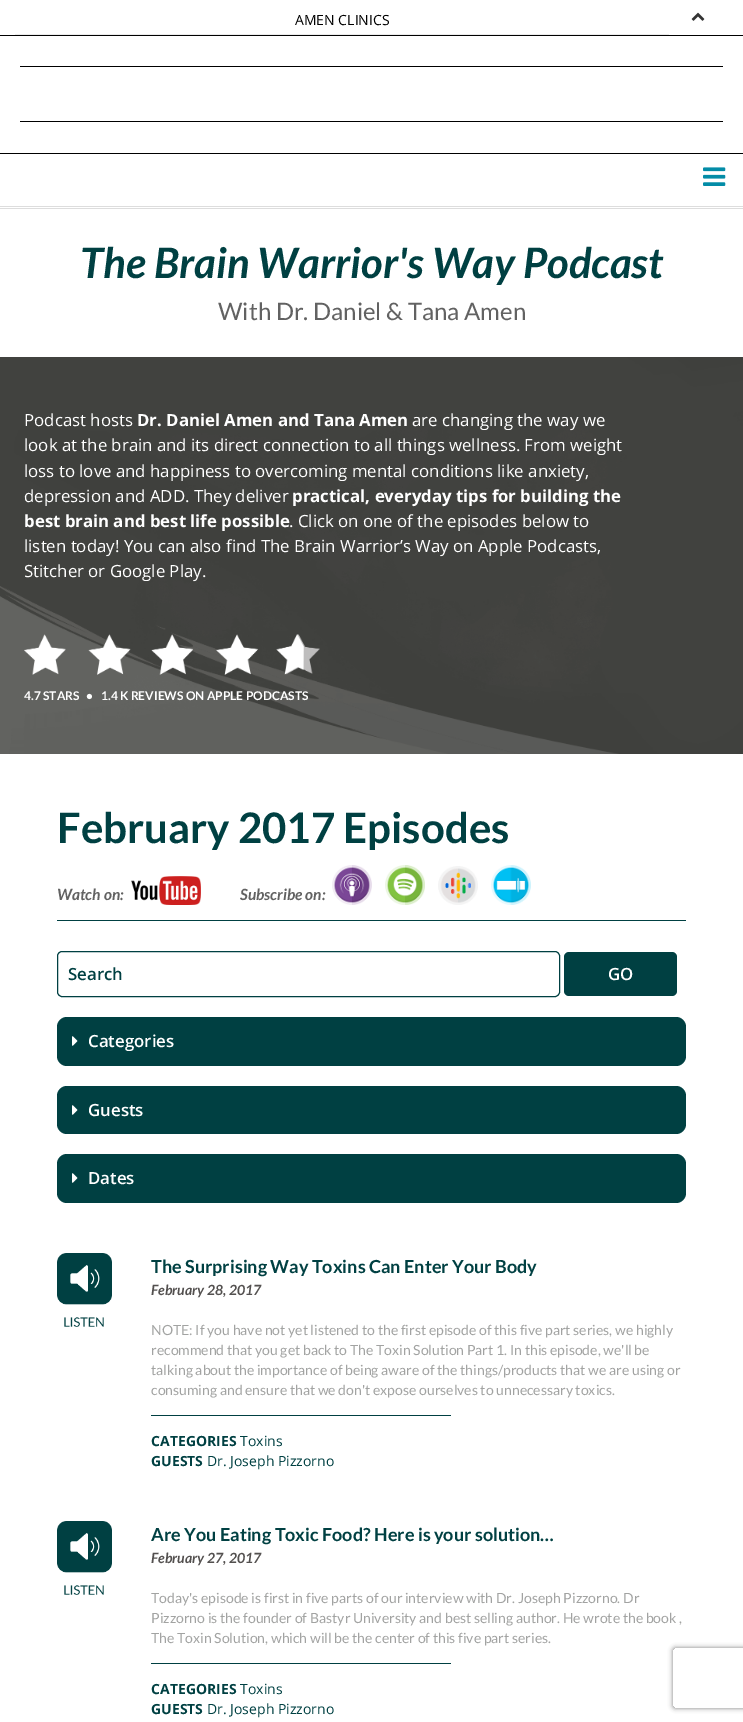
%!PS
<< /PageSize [743 1722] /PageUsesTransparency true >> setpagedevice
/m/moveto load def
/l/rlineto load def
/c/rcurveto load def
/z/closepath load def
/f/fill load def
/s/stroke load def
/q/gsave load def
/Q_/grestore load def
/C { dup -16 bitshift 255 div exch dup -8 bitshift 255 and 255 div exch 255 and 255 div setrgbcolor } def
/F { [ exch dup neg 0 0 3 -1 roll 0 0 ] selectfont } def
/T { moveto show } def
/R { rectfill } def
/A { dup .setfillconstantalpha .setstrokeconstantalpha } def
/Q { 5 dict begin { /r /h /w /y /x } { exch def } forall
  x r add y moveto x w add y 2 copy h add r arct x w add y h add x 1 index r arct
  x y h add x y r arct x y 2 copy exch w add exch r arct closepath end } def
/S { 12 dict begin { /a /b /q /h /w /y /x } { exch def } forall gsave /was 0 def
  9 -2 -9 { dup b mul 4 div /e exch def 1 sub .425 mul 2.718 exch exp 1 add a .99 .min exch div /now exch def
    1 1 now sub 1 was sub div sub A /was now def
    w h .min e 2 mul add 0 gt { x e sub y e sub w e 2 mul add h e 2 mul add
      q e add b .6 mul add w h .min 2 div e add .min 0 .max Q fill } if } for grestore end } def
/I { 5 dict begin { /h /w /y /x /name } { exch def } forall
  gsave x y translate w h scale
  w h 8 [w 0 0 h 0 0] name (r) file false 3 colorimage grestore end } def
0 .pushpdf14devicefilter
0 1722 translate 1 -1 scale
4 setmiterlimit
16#FFFFFF C
0 0 743 1722 R
16#EAEAEA C
15 34 654 1 R
/OpenSans-Regular 14 F
16#000000 C
(AMEN CLINICS) 295 25 T
(1.rgb) 691 12 14 9 I
0 35 743 1 R
0 153 743 1 R
20 66 703 1 R
20 121 703 1 R
16#DDDDDD C
0 208 743 1 R
(2.rgb) 703 167 23 19 I
0 206 743 1 R
/Lato-BoldItalic 42 F
16#004042 C
(The Brain Warrior's Way Podcast) 80 278 T
/Lato-Regular 24 F
16#626262 C
(With Dr. Daniel & Tana Amen) 218 320 T
(3.rgb) 0 357 743 397 I
/OpenSans-Regular 16.8 F
16#FFFFFF C
(Podcast hosts) 24 426 T
/OpenSans-Bold 16.8 F
(Dr. Daniel Amen and Tana Amen) 137 426 T
/OpenSans-Regular 16.8 F
(are changing the way we) 412 426 T
(look at the brain and its direct connection to all things wellness. From weight) 24 451 T
(loss to love and happiness to overcoming mental conditions like anxiety,) 24 477 T
(depression and ADD. They deliver) 24 502 T
/OpenSans-Bold 16.8 F
(practical, everyday tips for building the) 292 502 T
(best brain and best life possible) 24 527 T
/OpenSans-Regular 16.8 F
(. Click on one of the episodes below to) 289 527 T
(listen today! You can also find The Brain Warrior’s Way on Apple Podcasts,) 24 552 T
(Stitcher or Google Play.) 24 577 T
(4.rgb) 24 634 296 41 I
/Lato-Bold 12 F
(4.7 STARS) 24 700 T
(•) 86 700 T
(1.4 K REVIEWS ON APPLE PODCASTS) 101 700 T
16#004042 C
57 920 629 1 R
/Lato-Bold 42 F
(February 2017 Episodes) 57 843 T
/Lato-BoldItalic 15.5 F
16#626262 C
(Watch on:) 57 900 T
(5.rgb) 131 876 70 29 I
(Subscribe on:) 240 900 T
(6.rgb) 332 865 40 40 I
(7.rgb) 385 865 40 40 I
(8.rgb) 438 866 40 39 I
(9.rgb) 491 865 40 40 I
16#004042 C
57.5 951.5 502 45 4.5 Q s
/OpenSans-SemiBold 16.8 F
(Search) 68 980 T
564 952 113 44 5 Q f
16#FFFFFF C
(GO) 608 980 T
16#004042 C
57 1017 629 49 10 Q f
(10.rgb) 72 1036 6 10 I
16#FFFFFF C
(Categories) 88 1047 T
16#004042 C
57 1086 629 48 10 Q f
(10.rgb) 72 1105 6 10 I
16#FFFFFF C
(Guests) 88 1116 T
16#004042 C
57 1154 629 49 10 Q f
(10.rgb) 72 1173 6 10 I
16#FFFFFF C
(Dates) 88 1184 T
(11.rgb) 57 1253 55 74 I
/Lato-Bold 18 F
16#004042 C
(The Surprising Way Toxins Can Enter Your Body) 151 1273 T
/Lato-BoldItalic 14 F
16#53504F C
(February 28, 2017) 151 1295 T
/Lato-Regular 14 F
16#A2A3A2 C
(NOTE: If you have not yet listened to the first episode of this five part series, we highly) 151 1335 T
(recommend that you get back to The Toxin Solution Part 1. In this episode, we'll be) 151 1355 T
(talking about the importance of being aware of the things/products that we are using or) 151 1375 T
(consuming and ensure that we don't expose ourselves to unnecessary toxics.) 151 1395 T
16#004042 C
151 1415 300 1 R
/OpenSans-Bold 14 F
(CATEGORIES) 151 1446 T
/OpenSans-Regular 14 F
(Toxins) 240 1446 T
/OpenSans-Bold 14 F
(GUESTS) 151 1466 T
/OpenSans-Regular 14 F
(Dr. Joseph Pizzorno) 207 1466 T
(11.rgb) 57 1521 55 74 I
/Lato-Bold 18 F
(Are You Eating Toxic Food? Here is your solution…) 151 1541 T
/Lato-BoldItalic 14 F
16#53504F C
(February 27, 2017) 151 1563 T
/Lato-Regular 14 F
16#A2A3A2 C
(Today's episode is first in five parts of our interview with Dr. Joseph Pizzorno. Dr) 151 1603 T
(Pizzorno is the founder of Bastyr University and best selling author. He wrote the book ,) 151 1623 T
(The Toxin Solution, which will be the center of this five part series.) 151 1643 T
16#004042 C
151 1663 300 1 R
/OpenSans-Bold 14 F
(CATEGORIES) 151 1694 T
/OpenSans-Regular 14 F
(Toxins) 240 1694 T
/OpenSans-Bold 14 F
(GUESTS) 151 1714 T
/OpenSans-Regular 14 F
(Dr. Joseph Pizzorno) 207 1714 T
q
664 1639 m 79 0 l 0 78 l -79 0 l z 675 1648 m 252 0 l 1 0 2 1 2 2 c 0 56 l 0 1 -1 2 -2 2 c -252 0 l -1 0 -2 -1 -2 -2 c 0 -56 l 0 -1 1 -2 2 -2 c z eoclip newpath
16#808080 C
673 1648 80 60 2 2.5 1 S
Q_
.poppdf14devicefilter showpage
